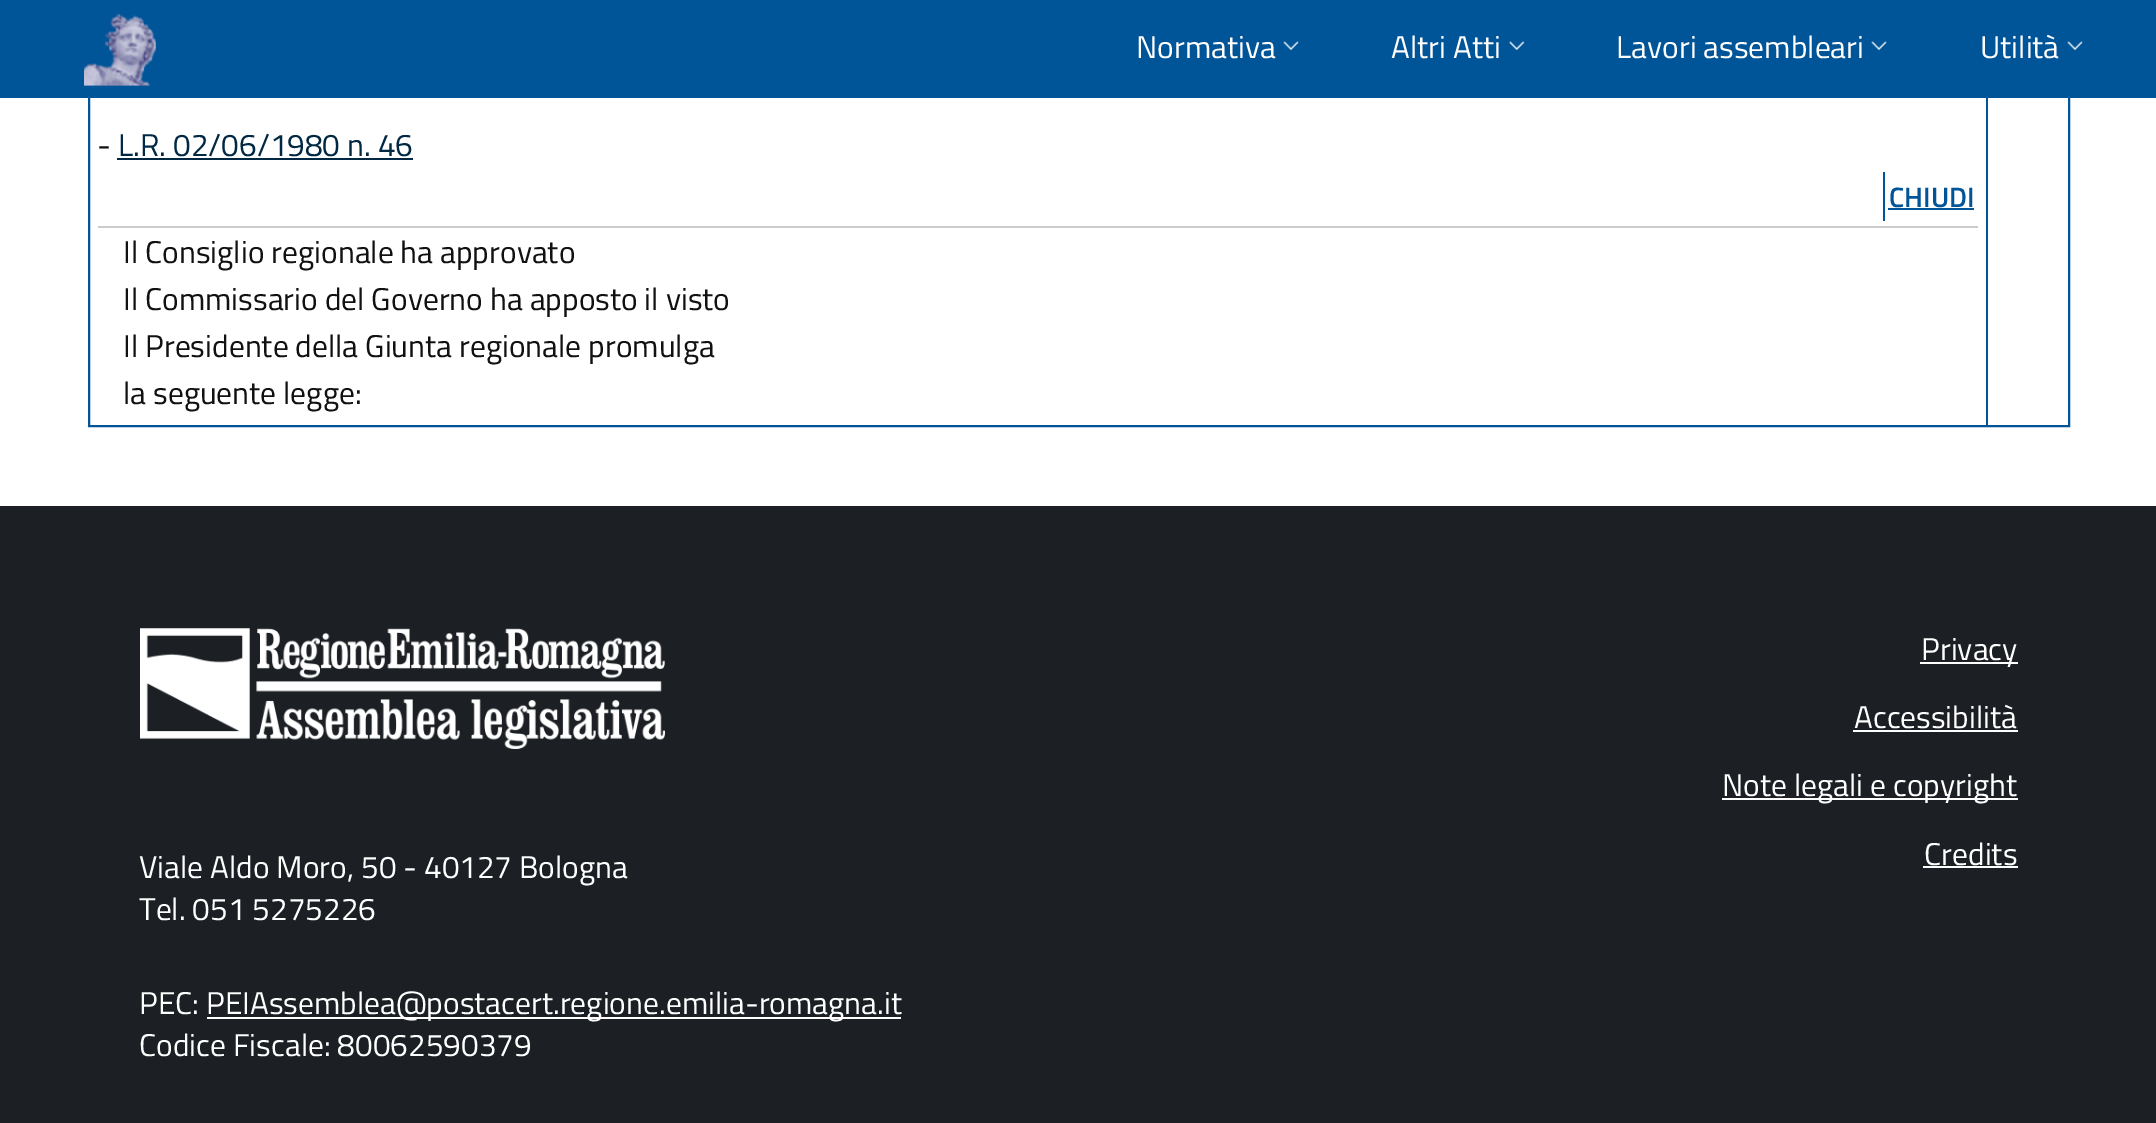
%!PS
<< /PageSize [2156 1123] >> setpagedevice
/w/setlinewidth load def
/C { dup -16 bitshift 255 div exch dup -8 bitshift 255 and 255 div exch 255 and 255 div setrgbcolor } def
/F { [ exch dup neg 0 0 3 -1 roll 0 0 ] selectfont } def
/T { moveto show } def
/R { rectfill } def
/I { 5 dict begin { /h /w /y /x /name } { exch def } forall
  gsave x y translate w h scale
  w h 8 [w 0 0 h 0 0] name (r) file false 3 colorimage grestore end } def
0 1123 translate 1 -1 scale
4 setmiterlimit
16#FFFFFF C
0 0 2156 1123 R
16#005498 C
2 w
89 -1 1980 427 rectstroke
0 0 2156 98 R
(1.rgb) 84 13 72 73 I
/TitilliumWeb-Regular 31.5 F
16#FFFFFF C
(Normativa) 1136 58 T
(2.rgb) 1283 41 16 10 I
(Altri Atti) 1391 58 T
(3.rgb) 1508 41 17 9 I
(Lavori assembleari) 1616 58 T
(2.rgb) 1871 41 16 10 I
(Utilità) 1980 58 T
(2.rgb) 2067 41 16 10 I
16#005498 C
1986 98 2 327 R
16#111111 C
(-) 97 156 T
16#002843 C
(L.R. 02/06/1980 n. 46) 118 156 T
117 158 296 2 R
16#CCCCCC C
98 226 1880 2 R
16#005498 C
1883 172 2 49 R
/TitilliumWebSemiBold-SemiBold 28 F
(CHIUDI) 1889 207 T
1888 208 86 2 R
/TitilliumWeb-Regular 31.5 F
16#111111 C
(Il Consiglio regionale ha approvato) 123 263 T
(Il Commissario del Governo ha apposto il visto) 123 310 T
(Il Presidente della Giunta regionale promulga) 123 357 T
(la seguente legge:) 123 404 T
16#1C2024 C
0 506 2156 617 R
16#FFFFFF C
1920 662 98 2 R
(Privacy) 1921 660 T
(Accessibilità) 1854 728 T
1853 730 165 2 R
1722 798 296 2 R
(Note legali e copyright) 1722 796 T
(Credits) 1924 865 T
1923 866 95 2 R
(4.rgb) 140 628 525 121 I
(Viale Aldo Moro, 50 - 40127 Bologna) 139 878 T
(Tel. 051 5275226) 139 920 T
(PEC:) 139 1014 T
207 1017 694 2 R
(PEIAssemblea@postacert.regione.emilia-romagna.it) 206 1014 T
(Codice Fiscale: 80062590379) 139 1056 T
showpage
